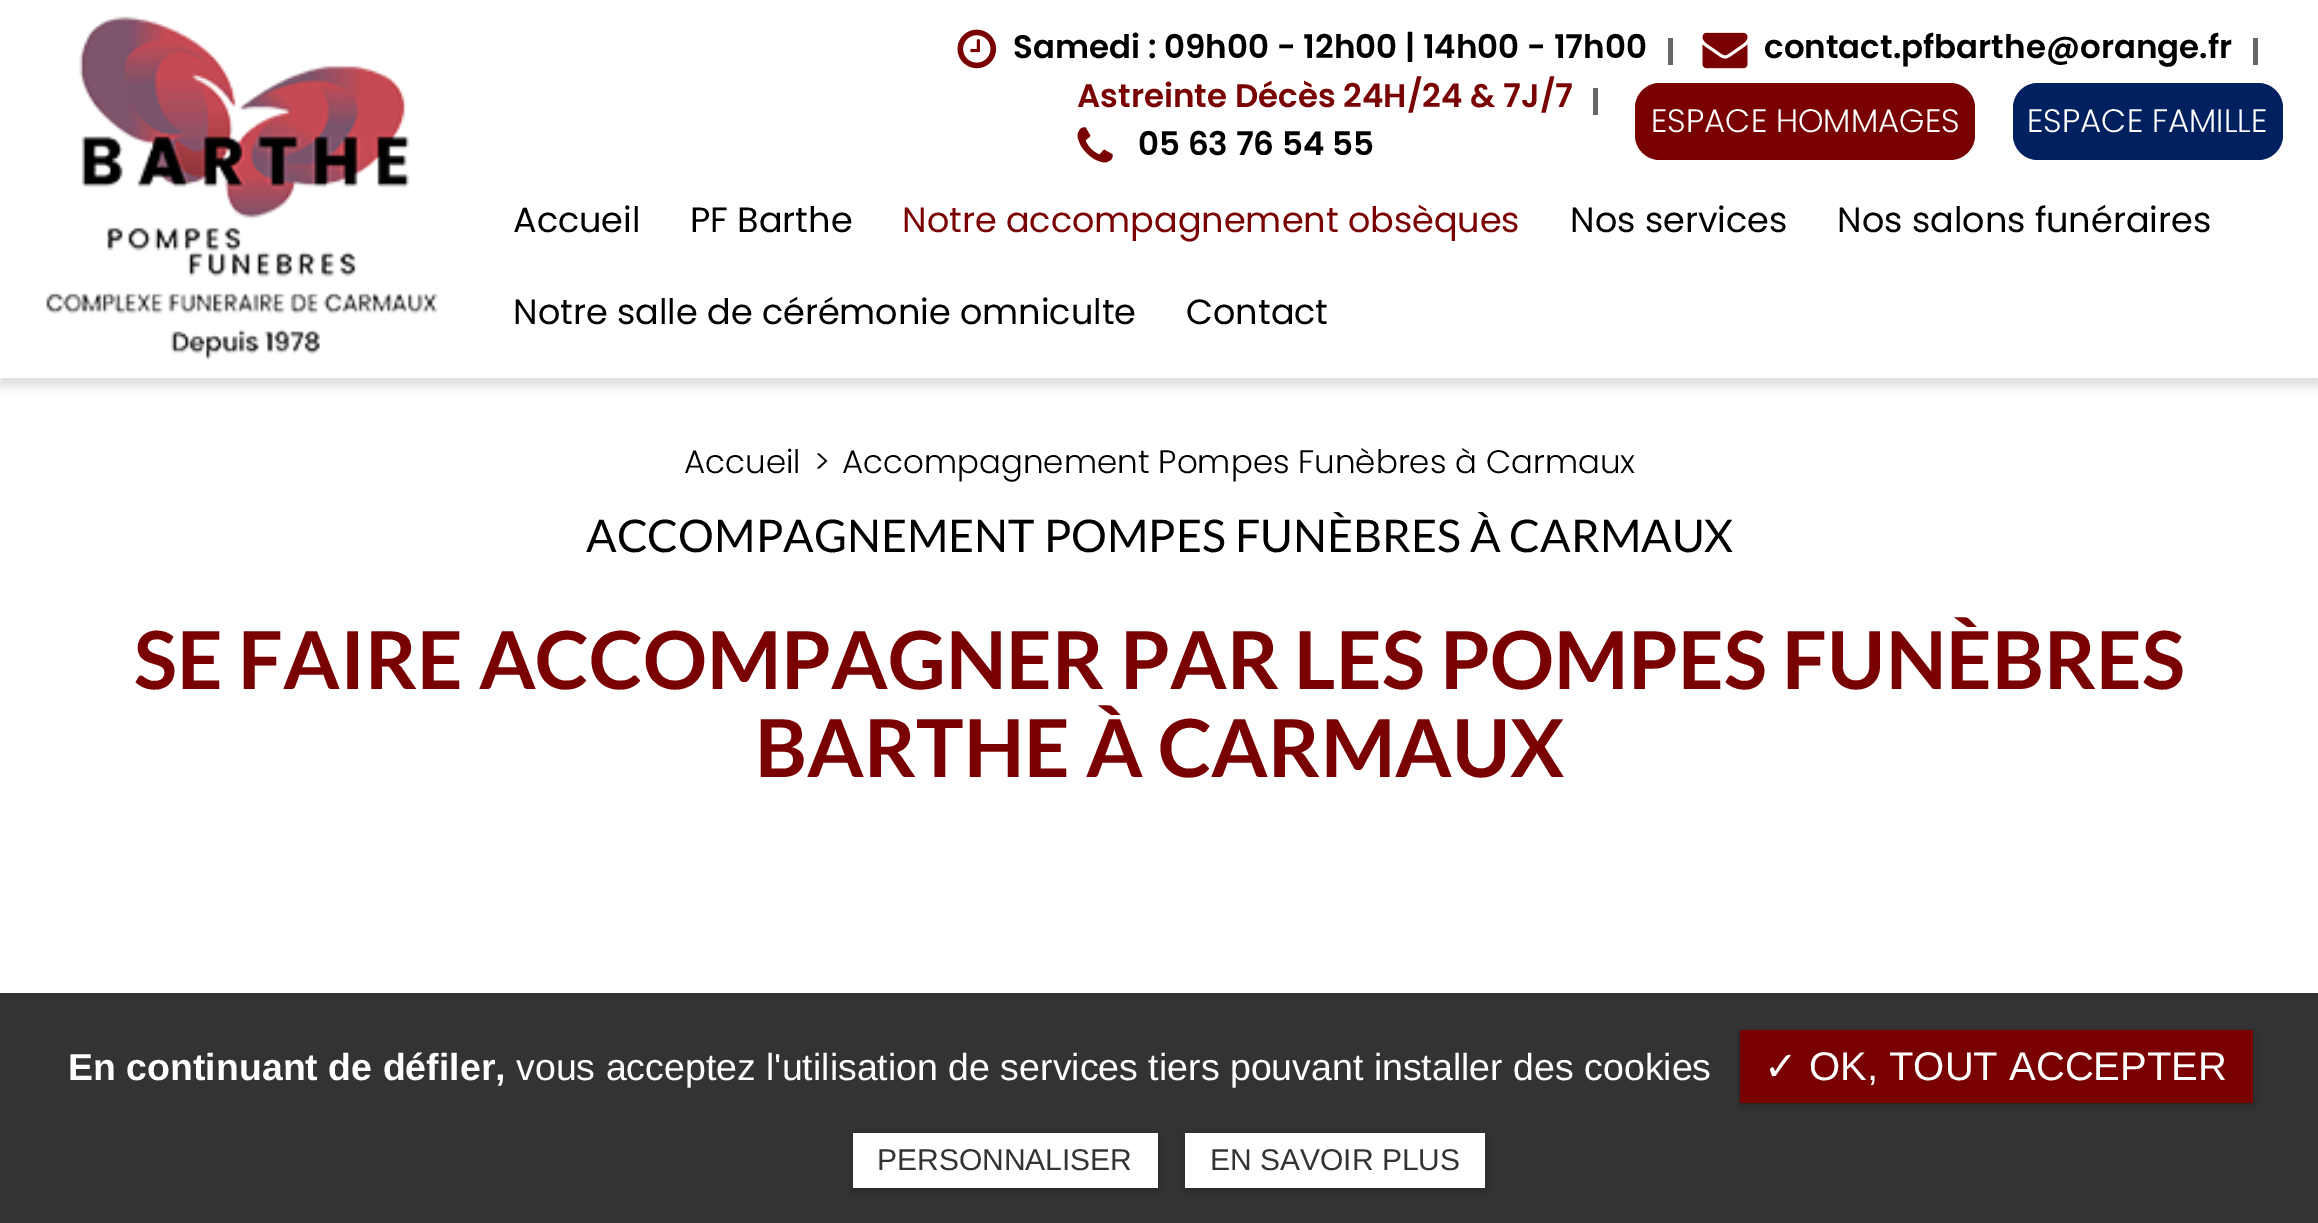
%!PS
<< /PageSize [2318 1223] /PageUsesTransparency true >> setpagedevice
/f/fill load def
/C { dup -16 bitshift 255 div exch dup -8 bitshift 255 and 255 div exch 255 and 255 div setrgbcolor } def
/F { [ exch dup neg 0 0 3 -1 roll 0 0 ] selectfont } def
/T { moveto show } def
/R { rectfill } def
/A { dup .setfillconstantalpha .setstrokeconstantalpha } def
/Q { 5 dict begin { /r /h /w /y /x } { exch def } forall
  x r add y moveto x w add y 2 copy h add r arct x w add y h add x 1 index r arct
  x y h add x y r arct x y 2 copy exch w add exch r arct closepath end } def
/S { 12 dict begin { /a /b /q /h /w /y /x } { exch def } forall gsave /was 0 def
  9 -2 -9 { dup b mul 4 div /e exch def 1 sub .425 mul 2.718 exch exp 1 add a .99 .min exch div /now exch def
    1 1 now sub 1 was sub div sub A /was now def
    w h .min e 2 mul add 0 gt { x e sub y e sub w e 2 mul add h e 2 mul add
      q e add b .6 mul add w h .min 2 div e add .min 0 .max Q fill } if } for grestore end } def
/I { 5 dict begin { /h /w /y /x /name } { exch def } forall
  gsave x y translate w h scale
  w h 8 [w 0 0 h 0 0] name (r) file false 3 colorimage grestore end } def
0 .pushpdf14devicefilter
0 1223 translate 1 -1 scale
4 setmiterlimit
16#FFFFFF C
0 0 2318 1223 R
16#000000 C
0 8 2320 377 0 6 .15 S
16#FFFFFF C
0 0 2318 378 R
(1.rgb) 46 16 392 344 I
(2.rgb) 957 29 40 40 I
/Poppins-SemiBold 32.5 F
16#000000 C
(Samedi : 09h00 - 12h00 | 14h00 - 17h00) 1013 58 T
16#666666 C
1668 38 5 27 R
(3.rgb) 1702 32 46 37 I
16#000000 C
(contact.pfbarthe@orange.fr) 1764 58 T
16#666666 C
2253 38 5 27 R
16#7A0101 C
(Astreinte Décès 24H/24 & 7J/7) 1077 107 T
(4.rgb) 1077 127 36 36 I
16#000000 C
(05 63 76 54 55) 1138 155 T
16#666666 C
1593 88 5 27 R
16#7A0101 C
1635 83 340 77 25 Q f
/Poppins-Light 32.5 F
16#FFFFFF C
(ESPACE HOMMAGES) 1651 132 T
16#002060 C
2013 83 270 77 25 Q f
16#FFFFFF C
(ESPACE FAMILLE) 2027 132 T
/Poppins-Regular 35 F
16#000000 C
(Accueil) 513 232 T
(PF Barthe) 690 232 T
16#7A0101 C
(Notre accompagnement obsèques) 902 232 T
16#000000 C
(Nos services) 1570 232 T
(Nos salons funéraires) 1837 232 T
(Notre salle de cérémonie omniculte) 513 324 T
(Contact) 1186 324 T
/Poppins-Light 32.5 F
(Accueil) 684 473 T
(>) 814 473 T
(Accompagnement Pompes Funèbres à Carmaux) 842 473 T
/Lato-Regular 45 F
(ACCOMPAGNEMENT POMPES FUNÈBRES À CARMAUX) 586 552 T
/Lato-Bold 80 F
16#7A0101 C
(SE FAIRE ACCOMPAGNER PAR LES POMPES FUNÈBRES) 134 689 T
(BARTHE À CARMAUX) 755 777 T
16#333333 C
0 993 2318 230 R
/LiberationSans-Bold 37.5 F
16#FFFFFF C
(En continuant de défiler,) 68 1080 T
/LiberationSans-Regular 37.5 F
(vous acceptez l'utilisation de services tiers pouvant installer des cookies) 516 1080 T
16#000000 C
1740 1033 513 72 0 4 .3 S
16#7A0101 C
1740 1030 513 73 R
/DejaVuSans-Regular 40 F
16#FFFFFF C
(✓) 1764 1080 T
/LiberationSans-Regular 40 F
(OK, TOUT ACCEPTER) 1809 1080 T
16#000000 C
853 1135 305 55 0 4 .3 S
16#FFFFFF C
853 1133 305 55 R
/LiberationSans-Regular 30 F
16#333333 C
(PERSONNALISER) 877 1170 T
16#000000 C
1185 1135 300 55 0 4 .3 S
16#FFFFFF C
1185 1133 300 55 R
16#333333 C
(EN SAVOIR PLUS) 1210 1170 T
.poppdf14devicefilter showpage
